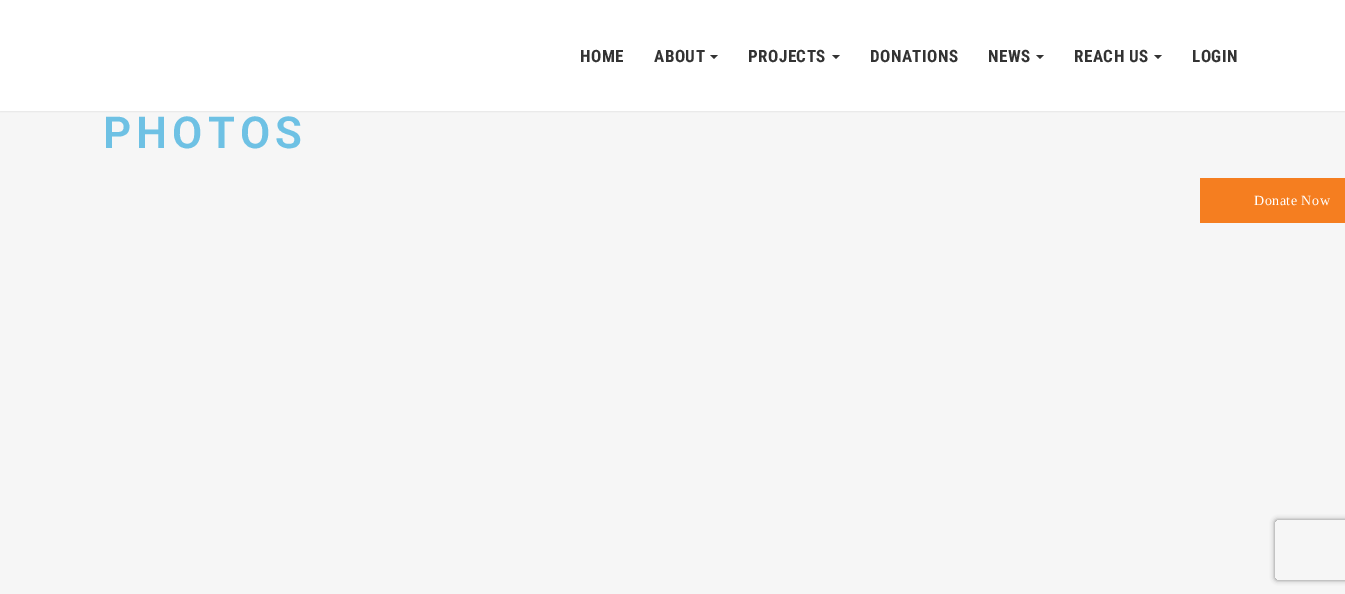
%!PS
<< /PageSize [1345 594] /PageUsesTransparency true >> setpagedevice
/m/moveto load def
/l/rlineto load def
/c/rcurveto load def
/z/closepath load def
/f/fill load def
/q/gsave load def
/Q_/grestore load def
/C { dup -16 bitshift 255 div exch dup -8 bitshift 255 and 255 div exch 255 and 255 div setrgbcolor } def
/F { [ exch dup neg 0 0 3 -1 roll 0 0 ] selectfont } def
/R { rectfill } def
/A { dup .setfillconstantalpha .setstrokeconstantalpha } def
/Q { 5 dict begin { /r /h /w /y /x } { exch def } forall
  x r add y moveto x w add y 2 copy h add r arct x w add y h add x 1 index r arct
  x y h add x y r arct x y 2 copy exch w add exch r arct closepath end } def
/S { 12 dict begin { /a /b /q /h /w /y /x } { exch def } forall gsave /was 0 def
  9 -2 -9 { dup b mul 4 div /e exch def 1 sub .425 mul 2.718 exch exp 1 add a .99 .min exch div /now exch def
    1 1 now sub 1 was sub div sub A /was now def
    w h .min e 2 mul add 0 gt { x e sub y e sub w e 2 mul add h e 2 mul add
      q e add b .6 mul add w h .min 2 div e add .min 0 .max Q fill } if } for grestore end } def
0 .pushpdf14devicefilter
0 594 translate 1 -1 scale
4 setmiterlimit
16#F6F6F6 C
0 0 1345 594 R
16#000000 C
0 1 1345 111 0 .5 .05 S
16#FFFFFF C
0 0 1345 111 R
/RobotoCondensed-Bold 17 F
16#333333 C
580 62 m .5 0 (HOME) ashow
654 62 m .5 0 (ABOUT) ashow
710 55 m 8 0 l -4 4 l z f
748 62 m .5 0 (PROJECTS) ashow
832 55 m 8 0 l -4 4 l z f
870 62 m .5 0 (DONATIONS) ashow
988 62 m .5 0 (NEWS) ashow
1036 55 m 8 0 l -4 4 l z f
1074 62 m .5 0 (REACH US) ashow
1154 55 m 8 0 l -4 4 l z f
1192 62 m .5 0 (LOGIN) ashow
/Roboto-SemiBold 44 F
16#6EC1E4 C
103 148 m 5 0 (PHOTOS) ashow
16#F57E20 C
1200 178 145 45 R
/LiberationSerif-Regular 14 F
16#FFFFFF C
1254 205 m .5 0 (Donate Now) ashow
q
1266 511 m 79 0 l 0 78 l -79 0 l z 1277 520 m 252 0 l 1 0 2 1 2 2 c 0 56 l 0 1 -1 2 -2 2 c -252 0 l -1 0 -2 -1 -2 -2 c 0 -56 l 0 -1 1 -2 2 -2 c z eoclip newpath
16#808080 C
1275 520 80 60 2 2.5 1 S
Q_
.poppdf14devicefilter showpage
